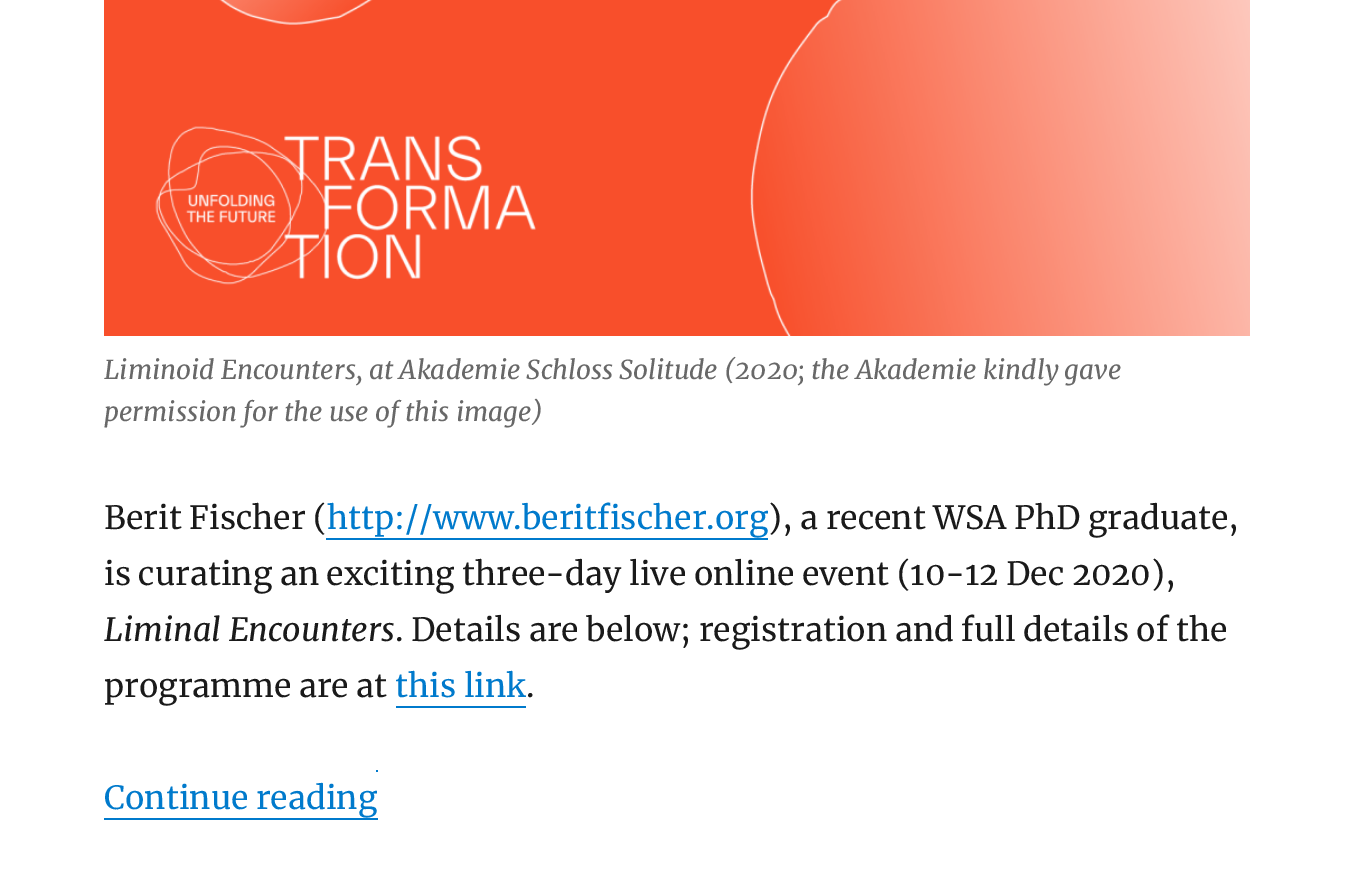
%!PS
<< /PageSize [1354 877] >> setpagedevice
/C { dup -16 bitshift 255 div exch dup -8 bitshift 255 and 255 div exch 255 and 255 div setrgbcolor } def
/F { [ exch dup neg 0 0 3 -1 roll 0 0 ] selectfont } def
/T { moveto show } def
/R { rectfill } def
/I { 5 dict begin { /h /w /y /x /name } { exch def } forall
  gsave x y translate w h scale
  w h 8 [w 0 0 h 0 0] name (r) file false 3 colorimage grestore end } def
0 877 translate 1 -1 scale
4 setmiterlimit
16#FFFFFF C
0 0 1354 877 R
(1.rgb) 104 0 1146 336 I
/Merriweather-Italic 26 F
16#686868 C
(Liminoid Encounters, at Akademie Schloss Solitude \(2020; the Akademie kindly gave) 104 379 T
(permission for the use of this image\)) 104 421 T
/Merriweather-Regular 32 F
16#1A1A1A C
(Berit Fischer \() 104 529 T
16#007ACC C
(http://www.beritfischer.org) 327 529 T
326 538 442 2 R
16#1A1A1A C
(\), a recent WSA PhD graduate,) 768 529 T
(is curating an exciting three-day live online event \(10-12 Dec 2020\),) 104 585 T
/Merriweather-Italic 32 F
(Liminal Encounters) 104 641 T
/Merriweather-Regular 32 F
(. Details are below; registration and full details of the) 395 641 T
(programme are at) 104 697 T
16#007ACC C
(this link) 395 697 T
396 706 130 2 R
16#1A1A1A C
(.) 526 697 T
16#007ACC C
(Continue reading) 104 809 T
104 818 274 2 R
376 770 2 2 R
showpage
